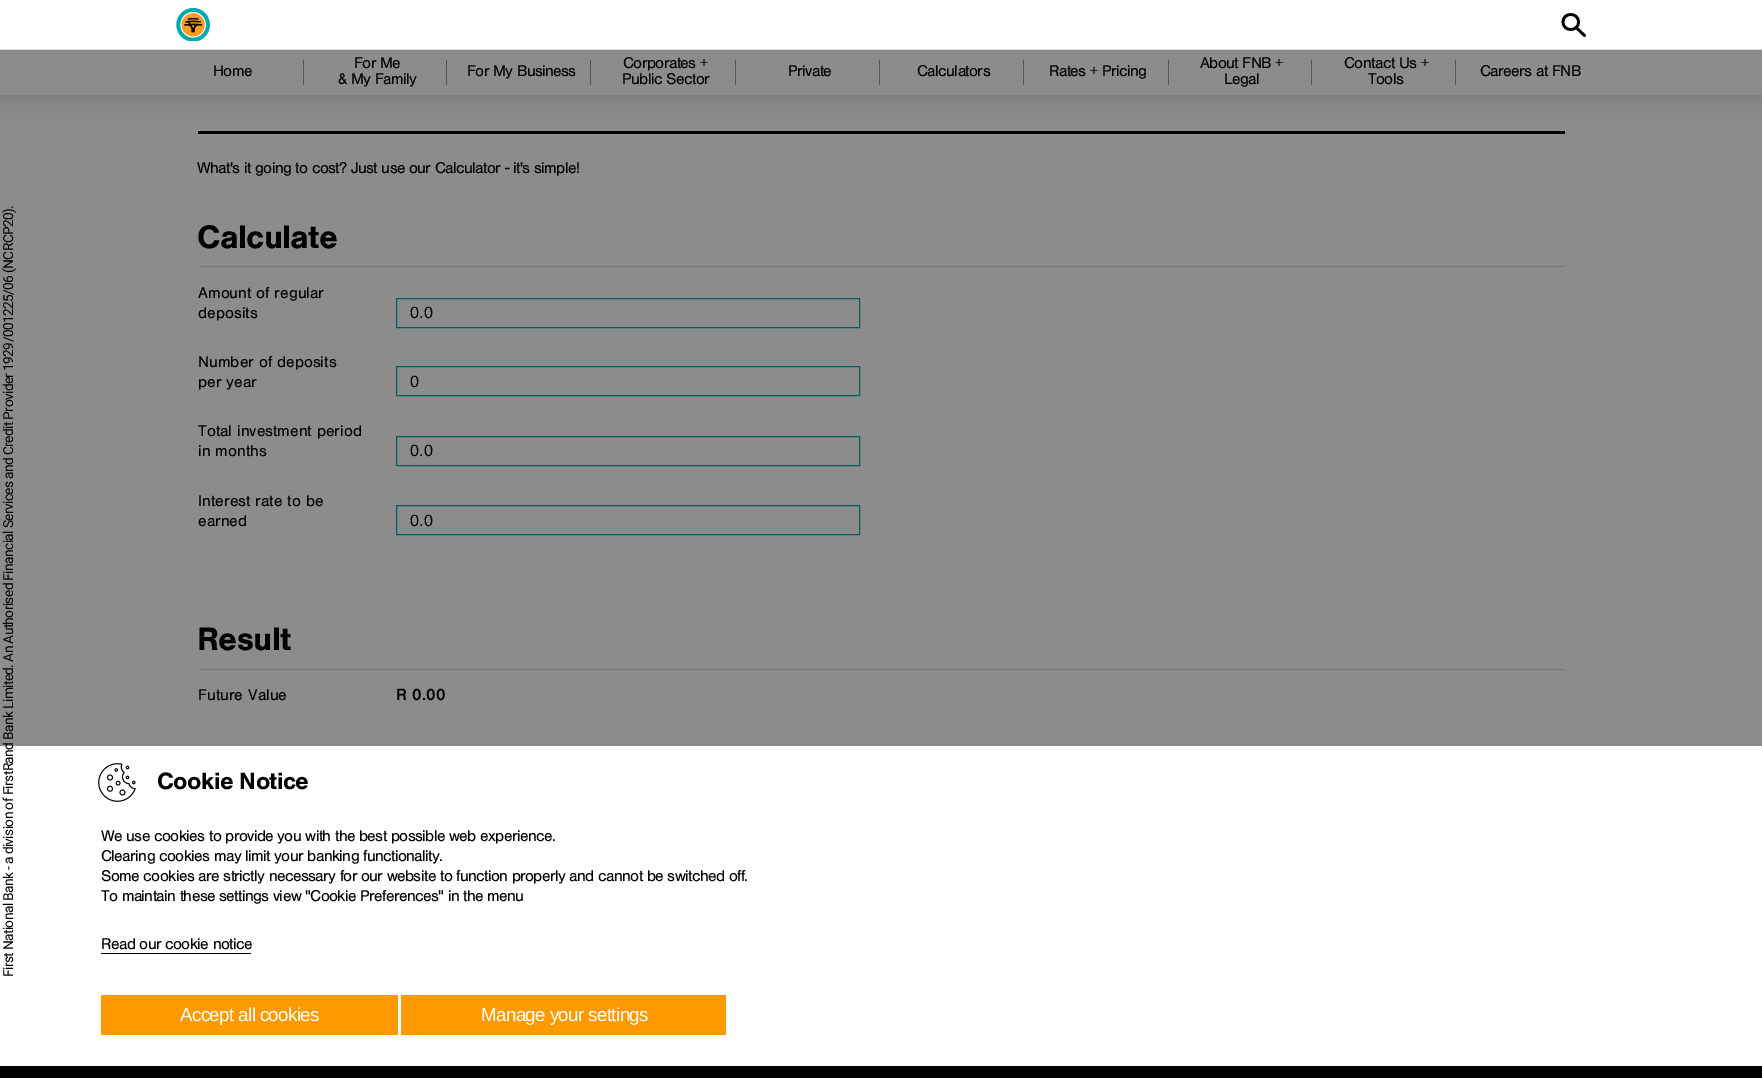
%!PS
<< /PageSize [1762 1078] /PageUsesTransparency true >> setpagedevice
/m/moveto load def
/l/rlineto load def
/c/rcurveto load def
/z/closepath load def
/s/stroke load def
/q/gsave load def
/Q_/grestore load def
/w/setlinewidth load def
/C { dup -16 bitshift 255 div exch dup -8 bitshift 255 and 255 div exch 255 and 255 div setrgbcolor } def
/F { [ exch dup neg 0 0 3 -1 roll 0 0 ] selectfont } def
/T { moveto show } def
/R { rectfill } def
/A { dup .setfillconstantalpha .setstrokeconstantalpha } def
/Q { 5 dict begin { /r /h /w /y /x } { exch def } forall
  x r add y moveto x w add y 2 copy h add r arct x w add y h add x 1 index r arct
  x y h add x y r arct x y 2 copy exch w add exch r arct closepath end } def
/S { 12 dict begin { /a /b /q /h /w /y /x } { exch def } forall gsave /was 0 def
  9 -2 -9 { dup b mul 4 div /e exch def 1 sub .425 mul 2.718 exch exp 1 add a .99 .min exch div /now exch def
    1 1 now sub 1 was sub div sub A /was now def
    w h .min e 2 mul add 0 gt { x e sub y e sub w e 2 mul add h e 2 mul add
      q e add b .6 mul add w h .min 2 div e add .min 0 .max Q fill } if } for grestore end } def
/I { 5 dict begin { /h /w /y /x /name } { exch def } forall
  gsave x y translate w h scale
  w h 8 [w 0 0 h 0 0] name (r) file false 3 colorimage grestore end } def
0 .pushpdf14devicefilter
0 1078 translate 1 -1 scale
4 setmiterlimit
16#8C8C8C C
0 0 1762 1078 R
16#000000 C
0 55 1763 46 0 9.5 .1 S
16#FFFFFF C
0 0 1762 49 R
16#DADADA C
0 49 1762 1 R
(1.rgb) 176 8 34 33 I
16#000000 C
2.7 w
1 setlinecap
1 setlinejoin
1578.5 22 m 0 10 -15.5 10 -15.5 0 c 0 -10 15.5 -10 15.5 0 c z 1576 27.5 m 8.5 8 l s
16#8C8C8C C
0 50 1762 45 R
/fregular-Regular 16.25 F
16#000000 C
213 76 m -.62 0 (Home) ashow
16#555555 C
303 60 1 25 R
16#000000 C
354 68 m -.62 0 (For Me) ashow
338 84 m -.62 0 (& My Family) ashow
16#555555 C
446 60 1 25 R
16#000000 C
467 76 m -.62 0 (For My Business) ashow
16#555555 C
590 60 1 25 R
16#000000 C
623 68 m -.62 0 (Corporates +) ashow
622 84 m -.62 0 (Public Sector) ashow
16#555555 C
735 60 1 25 R
16#000000 C
788 76 m -.62 0 (Private) ashow
16#555555 C
879 60 1 25 R
16#000000 C
917 76 m -.62 0 (Calculators) ashow
16#555555 C
1023 60 1 25 R
16#000000 C
1049 76 m -.62 0 (Rates + Pricing) ashow
16#555555 C
1168 60 1 25 R
16#000000 C
1200 68 m -.62 0 (About FNB +) ashow
1224 84 m -.62 0 (Legal) ashow
16#555555 C
1311 60 1 25 R
16#000000 C
1344 68 m -.62 0 (Contact Us +) ashow
1368 84 m -.62 0 (Tools) ashow
16#555555 C
1455 60 1 25 R
16#000000 C
1480 76 m -.62 0 (Careers at FNB) ashow
16#FFFFFF C
0 746 1762 320 R
/Roboto-Regular 13.75 F
16#000000 C
q 13 977 translate -90 rotate 0 0 m -.62 0 (First National Bank - a division of FirstRand Bank Limited. An Authorised Financial Services and Credit Provider 1929/001225/06 \(NCRCP20\).) ashow Q_
198 131 1367 3 R
/fregular-Regular 16.25 F
197 173 m -.62 0 (What's it going to cost? Just use our Calculator - it's simple!) ashow
/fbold-Bold 33.75 F
197 248 m -.62 0 (Calculate) ashow
16#787878 C
198 266 1367 1 R
/fregular-Regular 16.25 F
16#000000 C
(Amount of regular) 198 298 T
(deposits) 198 318 T
16#015E5F C
1 w
0 setlinecap
0 setlinejoin
396.5 298.5 463 29 rectstroke
/LiberationSans-Regular 16.25 F
16#000000 C
(0.0) 410 318 T
/fregular-Regular 16.25 F
(Number of deposits) 198 367 T
(per year) 198 387 T
16#015E5F C
396.5 366.5 463 29 rectstroke
/LiberationSans-Regular 16.25 F
16#000000 C
(0) 410 387 T
/fregular-Regular 16.25 F
(Total investment period) 198 436 T
(in months) 198 456 T
16#015E5F C
396.5 436.5 463 29 rectstroke
/LiberationSans-Regular 16.25 F
16#000000 C
(0.0) 410 456 T
/fregular-Regular 16.25 F
(Interest rate to be) 198 506 T
(earned) 198 526 T
16#015E5F C
396.5 505.5 463 29 rectstroke
/LiberationSans-Regular 16.25 F
16#000000 C
(0.0) 410 526 T
/fbold-Bold 33.75 F
197 650 m -.62 0 (Result) ashow
16#787878 C
198 669 1367 1 R
/fregular-Regular 16.25 F
16#000000 C
(Future Value) 198 700 T
/fregular-Bold 16.25 F
396 700 m .5 0 (R 0.00) ashow
(2.rgb) 98 763 38 39 I
/fbold-Bold 24.5 F
157 789 m -.62 0 (Cookie Notice) ashow
/fregular-Regular 16.25 F
101 841 m -.62 0 (We use cookies to provide you with the best possible web experience.) ashow
101 861 m -.62 0 (Clearing cookies may limit your banking functionality.) ashow
101 881 m -.62 0 (Some cookies are strictly necessary for our website to function properly and cannot be switched off.) ashow
101 901 m -.62 0 (To maintain these settings view "Cookie Preferences" in the menu) ashow
101 949 m -.62 0 (Read our cookie notice) ashow
101 953 150 1 R
16#FF9900 C
101 995 297 40 R
/LiberationSans-Regular 18.75 F
16#FFFFFF C
180 1021 m -.62 0 (Accept all cookies) ashow
16#FF9900 C
401 995 325 40 R
16#FFFFFF C
481 1021 m -.62 0 (Manage your settings) ashow
16#000000 C
0 1066 1762 12 R
.poppdf14devicefilter showpage
